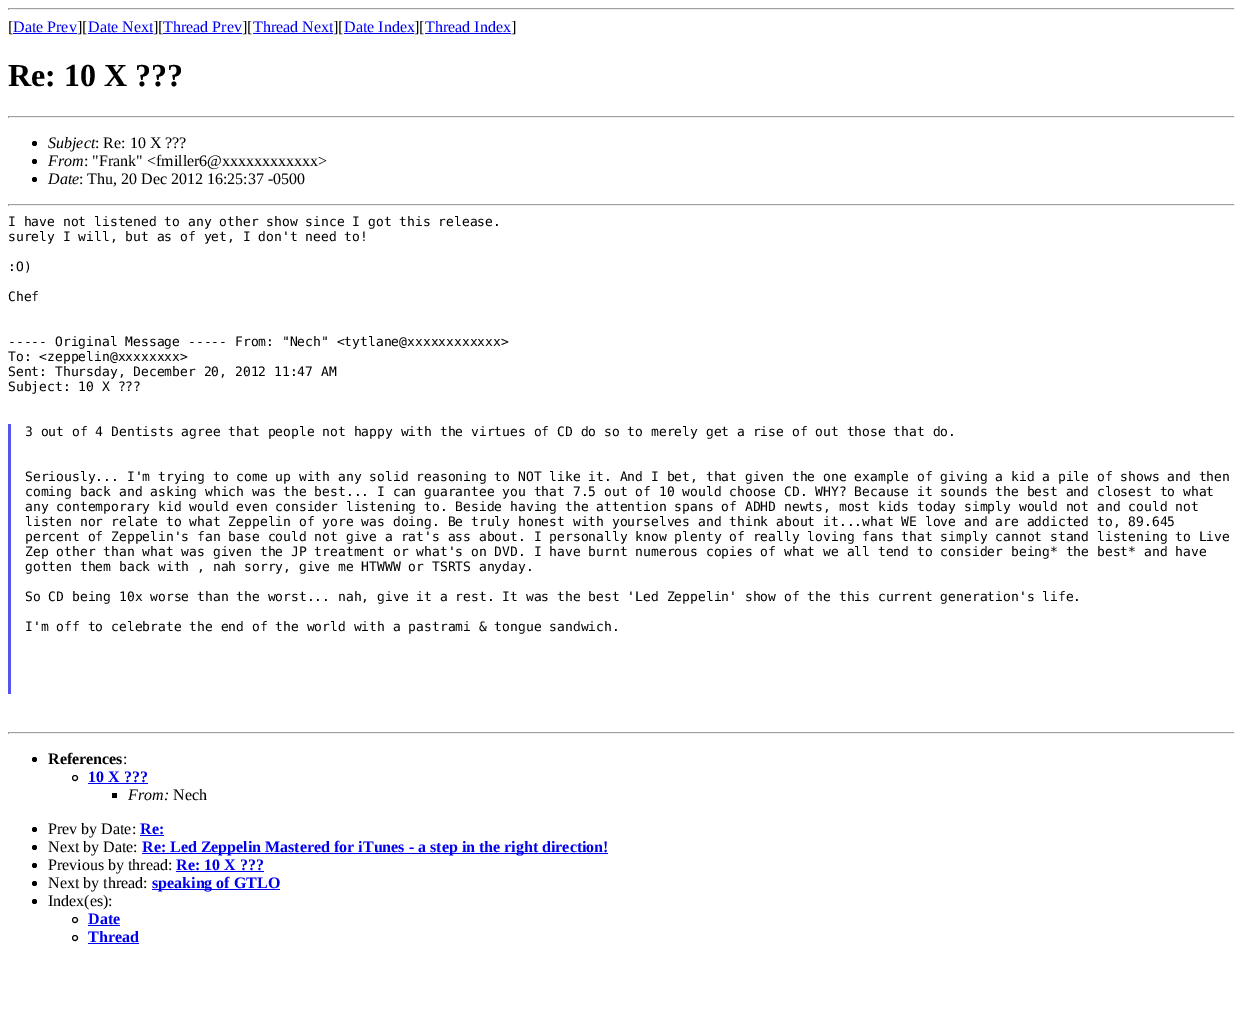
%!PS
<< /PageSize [1243 1018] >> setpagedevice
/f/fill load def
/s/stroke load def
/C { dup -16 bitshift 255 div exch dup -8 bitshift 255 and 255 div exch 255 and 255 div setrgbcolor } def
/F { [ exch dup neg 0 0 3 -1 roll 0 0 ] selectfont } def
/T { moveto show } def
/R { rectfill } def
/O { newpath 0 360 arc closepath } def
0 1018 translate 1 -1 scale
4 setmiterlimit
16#FFFFFF C
0 0 1243 1018 R
16#9F9F9F C
8 8 1227 1 R
16#EEEEEE C
1234 8 1 2 R
8 9 1227 1 R
16#9F9F9F C
8 8 1 2 R
/LiberationSerif-Regular 16 F
16#000000 C
([) 8 32 T
16#0000EE C
(Date Prev) 13 32 T
13 33 64 1 R
16#000000 C
(][) 77 32 T
16#0000EE C
(Date Next) 88 32 T
88 33 65 1 R
16#000000 C
(][) 153 32 T
16#0000EE C
(Thread Prev) 163 32 T
163 33 79 1 R
16#000000 C
(][) 242 32 T
16#0000EE C
(Thread Next) 253 32 T
253 33 80 1 R
16#000000 C
(][) 333 32 T
16#0000EE C
(Date Index) 344 32 T
344 33 70 1 R
16#000000 C
(][) 414 32 T
16#0000EE C
(Thread Index) 425 32 T
425 33 86 1 R
16#000000 C
(]) 511 32 T
/LiberationSerif-Bold 32 F
(Re: 10 X ???) 8 86 T
16#9F9F9F C
8 116 1227 1 R
16#EEEEEE C
1234 116 1 2 R
8 117 1227 1 R
16#9F9F9F C
8 116 1 2 R
16#000000 C
34.5 143.5 2.5 O f
/LiberationSerif-Italic 16 F
(Subject) 48 148 T
/LiberationSerif-Regular 16 F
(: Re: 10 X ???) 95 148 T
34.5 161.5 2.5 O f
/LiberationSerif-Italic 16 F
(From) 48 166 T
/LiberationSerif-Regular 16 F
(: "Frank" <fmiller6@xxxxxxxxxxxx>) 84 166 T
34.5 179.5 2.5 O f
/LiberationSerif-Italic 16 F
(Date) 48 184 T
/LiberationSerif-Regular 16 F
(: Thu, 20 Dec 2012 16:25:37 -0500) 79 184 T
16#9F9F9F C
8 204 1227 1 R
16#EEEEEE C
1234 204 1 2 R
8 205 1227 1 R
16#9F9F9F C
8 204 1 2 R
/DejaVuSansMono-Regular 13 F
16#000000 C
(I have not listened to any other show since I got this release.) 8 226 T
(surely I will, but as of yet, I don't need to!) 8 241 T
(:O\)) 8 271 T
(Chef) 8 301 T
(----- Original Message ----- From: "Nech" <tytlane@xxxxxxxxxxxx>) 8 346 T
(To: <zeppelin@xxxxxxxx>) 8 361 T
(Sent: Thursday, December 20, 2012 11:47 AM) 8 376 T
(Subject: 10 X ???) 8 391 T
16#5555EE C
8 424 3 270 R
16#000000 C
(3 out of 4 Dentists agree that people not happy with the virtues of CD do so to merely get a rise of out those that do.) 25 436 T
(Seriously... I'm trying to come up with any solid reasoning to NOT like it. And I bet, that given the one example of giving a kid a pile of shows and then) 25 481 T
(coming back and asking which was the best... I can guarantee you that 7.5 out of 10 would choose CD. WHY? Because it sounds the best and closest to what) 25 496 T
(any contemporary kid would even consider listening to. Beside having the attention spans of ADHD newts, most kids today simply would not and could not) 25 511 T
(listen nor relate to what Zeppelin of yore was doing. Be truly honest with yourselves and think about it...what WE love and are addicted to, 89.645) 25 526 T
(percent of Zeppelin's fan base could not give a rat's ass about. I personally know plenty of really loving fans that simply cannot stand listening to Live) 25 541 T
(Zep other than what was given the JP treatment or what's on DVD. I have burnt numerous copies of what we all tend to consider being* the best* and have) 25 556 T
(gotten them back with , nah sorry, give me HTWWW or TSRTS anyday.) 25 571 T
(So CD being 10x worse than the worst... nah, give it a rest. It was the best 'Led Zeppelin' show of the this current generation's life.) 25 601 T
(I'm off to celebrate the end of the world with a pastrami & tongue sandwich.) 25 631 T
16#9F9F9F C
8 732 1227 1 R
16#EEEEEE C
1234 732 1 2 R
8 733 1227 1 R
16#9F9F9F C
8 732 1 2 R
16#000000 C
34.5 759.5 2.5 O f
/LiberationSerif-Bold 16 F
(References) 48 764 T
/LiberationSerif-Regular 16 F
(:) 123 764 T
75 778 2.5 O s
/LiberationSerif-Bold 16 F
16#0000EE C
(10 X ???) 88 782 T
88 783 60 1 R
16#000000 C
112 793 5 5 R
/LiberationSerif-Italic 16 F
(From:) 128 800 T
/LiberationSerif-Regular 16 F
(Nech) 173 800 T
34.5 829.5 2.5 O f
(Prev by Date:) 48 834 T
/LiberationSerif-Bold 16 F
16#0000EE C
(Re:) 140 834 T
140 835 24 1 R
16#000000 C
34.5 847.5 2.5 O f
/LiberationSerif-Regular 16 F
(Next by Date:) 48 852 T
16#0000EE C
142 853 466 1 R
/LiberationSerif-Bold 16 F
(Re: Led Zeppelin Mastered for iTunes - a step in the right direction!) 142 852 T
16#000000 C
34.5 865.5 2.5 O f
/LiberationSerif-Regular 16 F
(Previous by thread:) 48 870 T
/LiberationSerif-Bold 16 F
16#0000EE C
(Re: 10 X ???) 176 870 T
176 871 88 1 R
16#000000 C
34.5 883.5 2.5 O f
/LiberationSerif-Regular 16 F
(Next by thread:) 48 888 T
16#0000EE C
152 889 128 1 R
/LiberationSerif-Bold 16 F
(speaking of GTLO) 152 888 T
16#000000 C
34.5 901.5 2.5 O f
/LiberationSerif-Regular 16 F
(Index\(es\):) 48 906 T
75 920 2.5 O s
/LiberationSerif-Bold 16 F
16#0000EE C
(Date) 88 924 T
88 925 32 1 R
16#000000 C
75 938 2.5 O s
16#0000EE C
(Thread) 88 942 T
88 943 51 1 R
showpage
